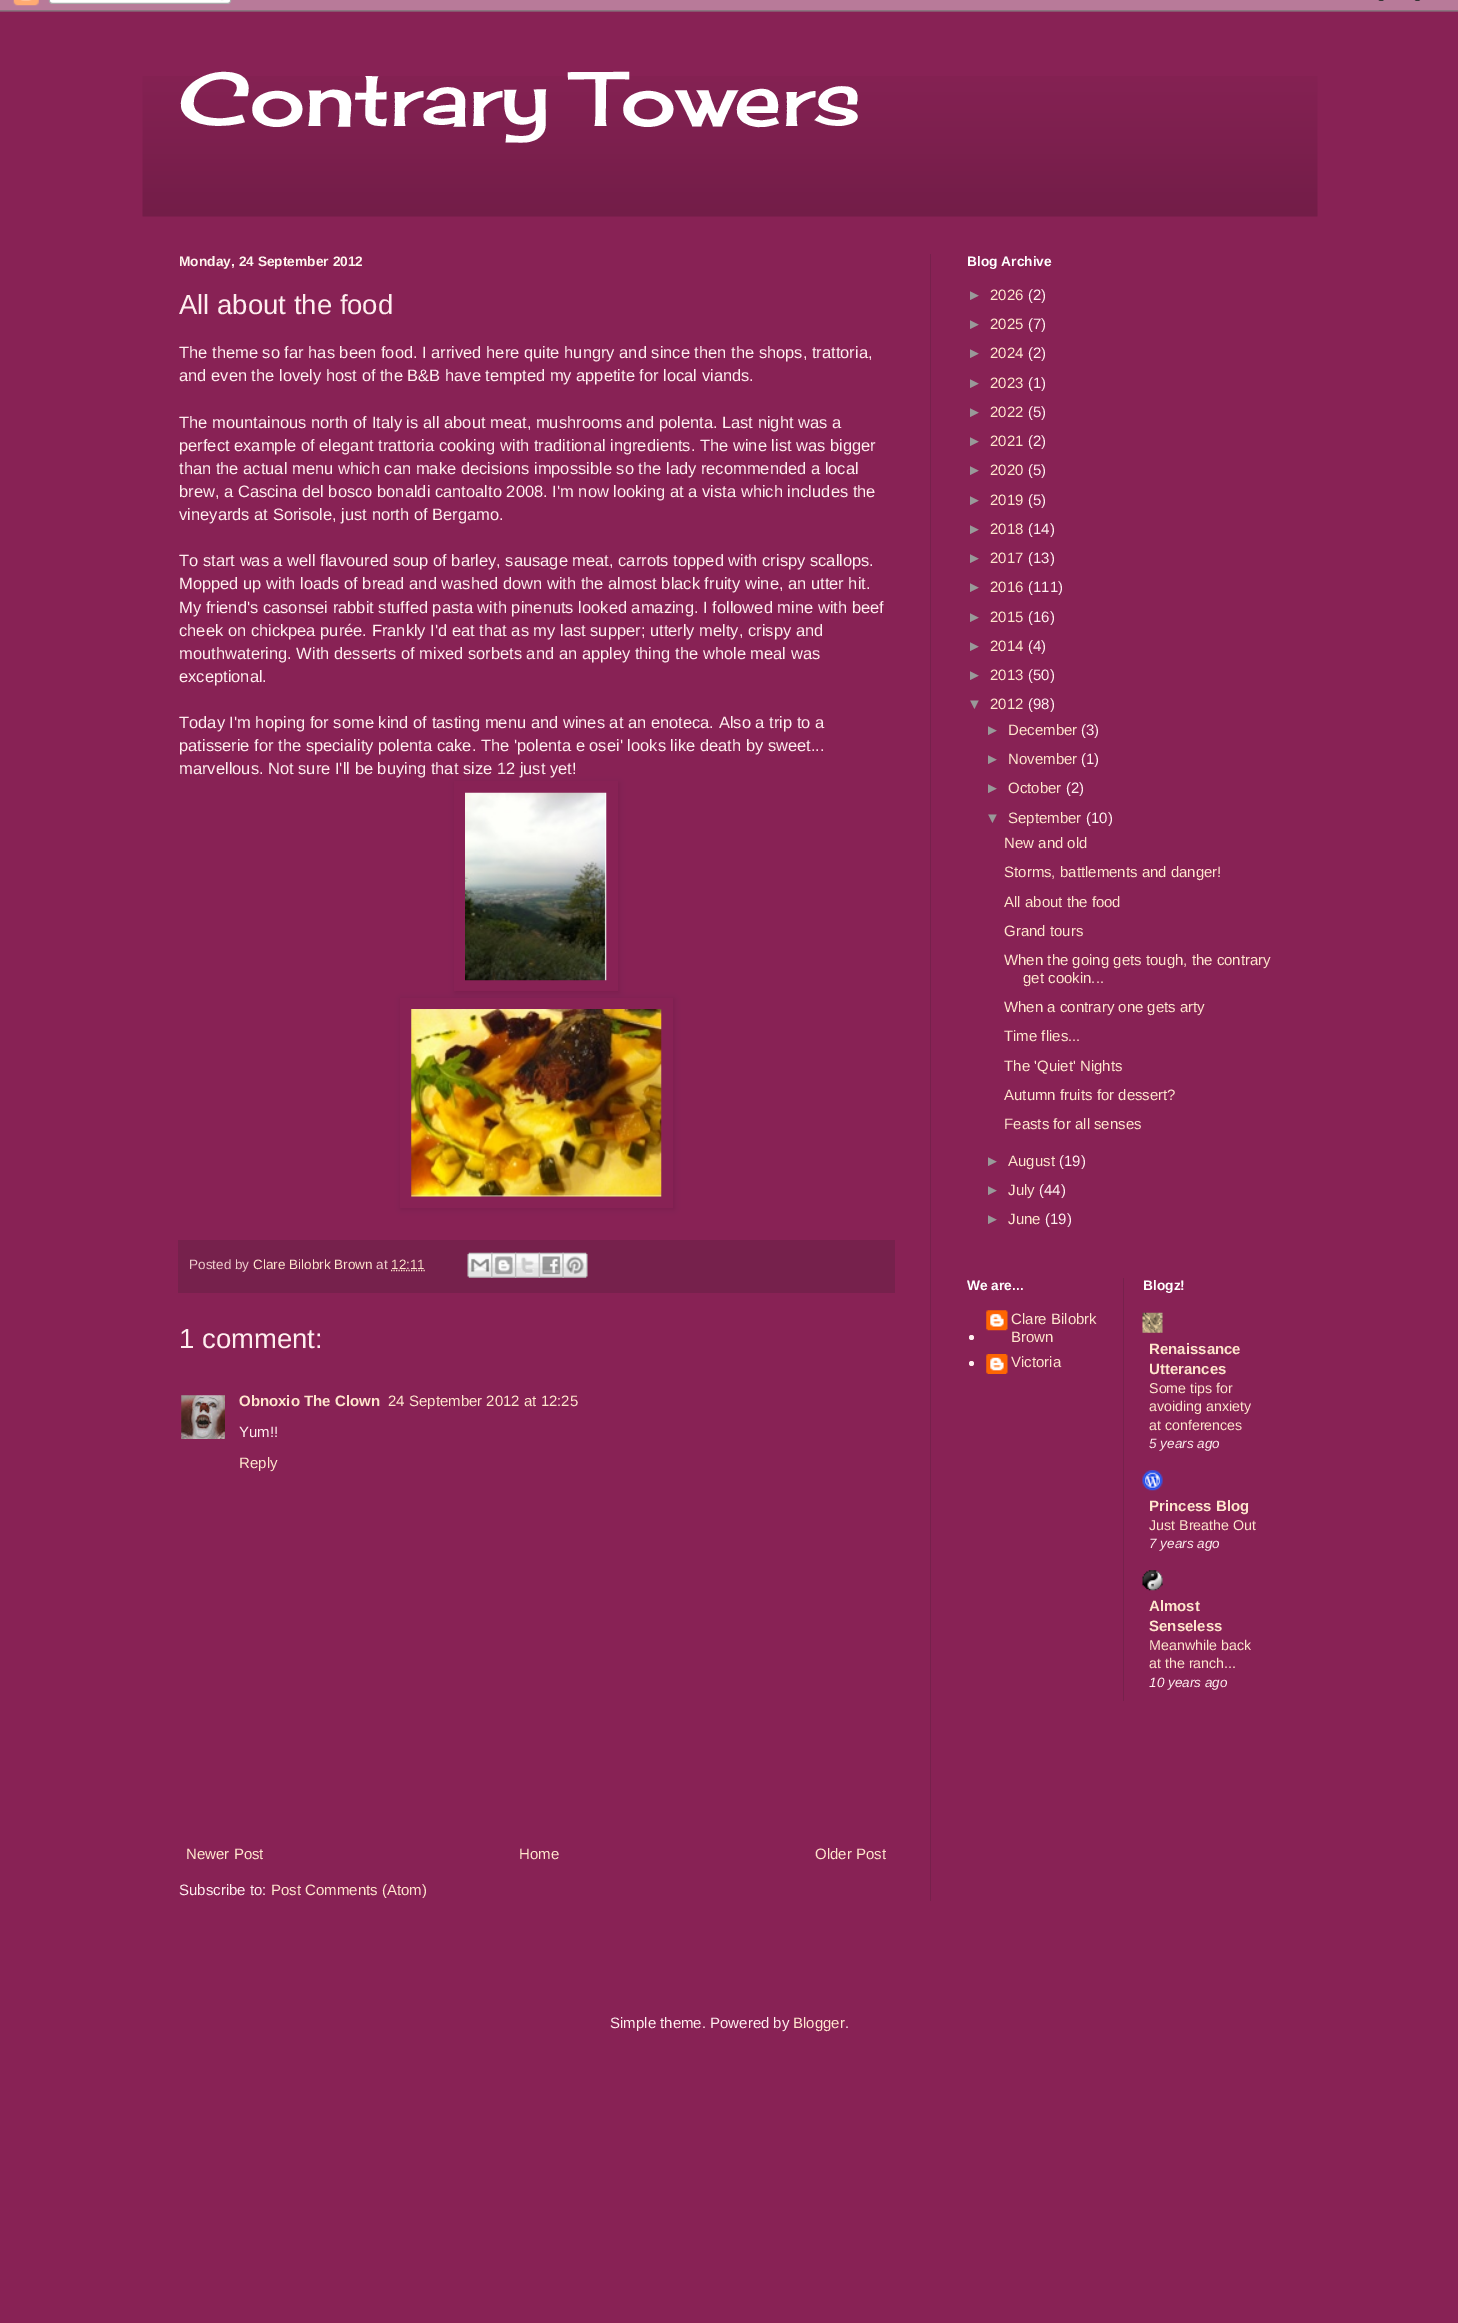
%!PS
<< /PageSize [1458 2323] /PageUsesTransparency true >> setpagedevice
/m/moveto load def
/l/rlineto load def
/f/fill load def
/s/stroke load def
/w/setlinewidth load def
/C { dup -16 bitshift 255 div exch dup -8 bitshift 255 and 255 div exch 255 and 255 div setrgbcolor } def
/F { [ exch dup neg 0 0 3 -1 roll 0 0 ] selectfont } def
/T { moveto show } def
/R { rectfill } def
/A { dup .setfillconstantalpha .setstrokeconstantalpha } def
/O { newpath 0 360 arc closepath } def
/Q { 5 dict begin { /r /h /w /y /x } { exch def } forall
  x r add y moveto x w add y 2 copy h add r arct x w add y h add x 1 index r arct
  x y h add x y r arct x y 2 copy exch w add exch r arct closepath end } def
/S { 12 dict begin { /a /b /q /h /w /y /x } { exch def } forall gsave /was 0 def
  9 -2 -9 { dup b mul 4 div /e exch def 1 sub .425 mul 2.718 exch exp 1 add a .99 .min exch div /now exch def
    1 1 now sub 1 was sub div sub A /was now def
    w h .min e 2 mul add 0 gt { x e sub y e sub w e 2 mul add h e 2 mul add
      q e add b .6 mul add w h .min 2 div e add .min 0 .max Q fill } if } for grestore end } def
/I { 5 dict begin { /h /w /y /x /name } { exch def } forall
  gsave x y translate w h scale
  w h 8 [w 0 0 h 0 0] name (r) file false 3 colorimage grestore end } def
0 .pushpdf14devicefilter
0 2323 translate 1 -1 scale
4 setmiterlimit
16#882255 C
0 0 1458 2323 R
(1.rgb) 0 0 1458 12 I
(2.rgb) 142 76 1176 141 I
/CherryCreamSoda-Regular 75 F
16#FFFFFF C
(Contrary Towers) 179 126 T
16#76214C C
930 254 1 1647 R
/LiberationSans-Bold 13.75 F
16#FFF5EE C
(Monday, 24 September 2012) 179 266 T
/LiberationSans-Regular 27.5 F
16#FFEEEF C
(All about the food) 179 314 T
/LiberationSans-Regular 16.5 F
(The theme so far has been food. I arrived here quite hungry and since then the shops, trattoria,) 179 358 T
(and even the lovely host of the B&B have tempted my appetite for local viands.) 179 381 T
(The mountainous north of Italy is all about meat, mushrooms and polenta. Last night was a) 179 428 T
(perfect example of elegant trattoria cooking with traditional ingredients. The wine list was bigger) 179 451 T
(than the actual menu which can make decisions impossible so the lady recommended a local) 179 474 T
(brew, a Cascina del bosco bonaldi cantoalto 2008. I'm now looking at a vista which includes the) 179 497 T
(vineyards at Sorisole, just north of Bergamo.) 179 520 T
(To start was a well flavoured soup of barley, sausage meat, carrots topped with crispy scallops.) 179 566 T
(Mopped up with loads of bread and washed down with the almost black fruity wine, an utter hit.) 179 589 T
(My friend's casonsei rabbit stuffed pasta with pinenuts looked amazing. I followed mine with beef) 179 613 T
(cheek on chickpea purée. Frankly I'd eat that as my last supper; utterly melty, crispy and) 179 636 T
(mouthwatering. With desserts of mixed sorbets and an appley thing the whole meal was) 179 659 T
(exceptional.) 179 682 T
(Today I'm hoping for some kind of tasting menu and wines at an enoteca. Also a trip to a) 179 728 T
(patisserie for the speciality polenta cake. The 'polenta e osei' looks like death by sweet...) 179 751 T
(marvellous. Not sure I'll be buying that size 12 just yet!) 179 774 T
16#000000 C
455 783 164 210 0 3 .1 S
16#882255 C
454 781 164 210 R
(3.rgb) 465 792 142 189 I
16#000000 C
401 999 273 210 0 3 .1 S
16#882255 C
400 998 273 210 R
(4.rgb) 411 1009 251 188 I
16#76214C C
178 1240 717 53 R
/LiberationSans-Regular 13.5 F
16#EECCCC C
(Posted by) 189 1269 T
16#FFE5CC C
(Clare Bilobrk Brown) 253 1269 T
16#EECCCC C
(at) 376 1269 T
16#FFE5CC C
(12:11) 391 1269 T
1.2 w
[1.25 1.25] 0 setdash
391 1270.5 m 34 0 l s
(5.rgb) 467 1252 26 26 I
(6.rgb) 491 1252 26 26 I
(7.rgb) 515 1252 25 26 I
(8.rgb) 538 1252 26 26 I
(9.rgb) 562 1252 26 26 I
/LiberationSans-Regular 27.5 F
16#FFEEEF C
(1 comment:) 179 1348 T
(10.rgb) 181 1395 44 44 I
/LiberationSans-Bold 15 F
16#FFE5CC C
(Obnoxio The Clown) 239 1406 T
/LiberationSans-Regular 15 F
(24 September 2012 at 12:25) 388 1406 T
16#FFEEEF C
(Yum!!) 239 1437 T
16#FFE5CC C
(Reply) 239 1468 T
(Newer Post) 186 1859 T
(Home) 519 1859 T
(Older Post) 815 1859 T
16#FFEEEF C
(Subscribe to:) 179 1895 T
16#FFE5CC C
(Post Comments \(Atom\)) 271 1895 T
/LiberationSans-Bold 13.75 F
16#FFFFFF C
(Blog Archive) 967 266 T
/LiberationSans-Regular 15 F
16#999999 C
(►) 967 300 T
16#FFE5CC C
(2026) 990 300 T
16#FFEEEF C
(\(2\)) 1028 300 T
16#999999 C
(►) 967 329 T
16#FFE5CC C
(2025) 990 329 T
16#FFEEEF C
(\(7\)) 1028 329 T
16#999999 C
(►) 967 358 T
16#FFE5CC C
(2024) 990 358 T
16#FFEEEF C
(\(2\)) 1028 358 T
16#999999 C
(►) 967 388 T
16#FFE5CC C
(2023) 990 388 T
16#FFEEEF C
(\(1\)) 1028 388 T
16#999999 C
(►) 967 417 T
16#FFE5CC C
(2022) 990 417 T
16#FFEEEF C
(\(5\)) 1028 417 T
16#999999 C
(►) 967 446 T
16#FFE5CC C
(2021) 990 446 T
16#FFEEEF C
(\(2\)) 1028 446 T
16#999999 C
(►) 967 475 T
16#FFE5CC C
(2020) 990 475 T
16#FFEEEF C
(\(5\)) 1028 475 T
16#999999 C
(►) 967 505 T
16#FFE5CC C
(2019) 990 505 T
16#FFEEEF C
(\(5\)) 1028 505 T
16#999999 C
(►) 967 534 T
16#FFE5CC C
(2018) 990 534 T
16#FFEEEF C
(\(14\)) 1028 534 T
16#999999 C
(►) 967 563 T
16#FFE5CC C
(2017) 990 563 T
16#FFEEEF C
(\(13\)) 1028 563 T
16#999999 C
(►) 967 592 T
16#FFE5CC C
(2016) 990 592 T
16#FFEEEF C
(\(111\)) 1028 592 T
16#999999 C
(►) 967 622 T
16#FFE5CC C
(2015) 990 622 T
16#FFEEEF C
(\(16\)) 1028 622 T
16#999999 C
(►) 967 651 T
16#FFE5CC C
(2014) 990 651 T
16#FFEEEF C
(\(4\)) 1028 651 T
16#999999 C
(►) 967 680 T
16#FFE5CC C
(2013) 990 680 T
16#FFEEEF C
(\(50\)) 1028 680 T
16#999999 C
(▼) 967 709 T
16#FFE5CC C
(2012) 990 709 T
16#FFEEEF C
(\(98\)) 1028 709 T
16#999999 C
(►) 985 735 T
16#FFE5CC C
(December) 1008 735 T
16#FFEEEF C
(\(3\)) 1081 735 T
16#999999 C
(►) 985 764 T
16#FFE5CC C
(November) 1008 764 T
16#FFEEEF C
(\(1\)) 1081 764 T
16#999999 C
(►) 985 793 T
16#FFE5CC C
(October) 1008 793 T
16#FFEEEF C
(\(2\)) 1066 793 T
16#999999 C
(▼) 985 823 T
16#FFE5CC C
(September) 1008 823 T
16#FFEEEF C
(\(10\)) 1086 823 T
16#FFE5CC C
(New and old) 1004 848 T
(Storms, battlements and danger!) 1004 877 T
(All about the food) 1004 907 T
(Grand tours) 1004 936 T
(When the going gets tough, the contrary) 1004 965 T
(get cookin...) 1023 983 T
(When a contrary one gets arty) 1004 1012 T
(Time flies...) 1004 1041 T
(The 'Quiet' Nights) 1004 1071 T
(Autumn fruits for dessert?) 1004 1100 T
(Feasts for all senses) 1004 1129 T
16#999999 C
(►) 985 1166 T
16#FFE5CC C
(August) 1008 1166 T
16#FFEEEF C
(\(19\)) 1059 1166 T
16#999999 C
(►) 985 1195 T
16#FFE5CC C
(July) 1008 1195 T
16#FFEEEF C
(\(44\)) 1039 1195 T
16#999999 C
(►) 985 1224 T
16#FFE5CC C
(June) 1008 1224 T
16#FFEEEF C
(\(19\)) 1045 1224 T
/LiberationSans-Bold 13.75 F
16#FFFFFF C
(We are...) 967 1290 T
16#FFEEEF C
971.5 1337.5 2.5 O f
(11.rgb) 986 1310 22 21 I
/LiberationSans-Regular 15 F
16#FFE5CC C
(Clare Bilobrk) 1011 1324 T
(Brown) 1011 1342 T
16#FFEEEF C
971.5 1363.5 2.5 O f
(12.rgb) 986 1354 22 20 I
16#FFE5CC C
(Victoria) 1011 1367 T
16#76214C C
1123 1278 1 423 R
/LiberationSans-Bold 13.75 F
16#FFFFFF C
(Blogz!) 1143 1290 T
(13.rgb) 1142 1312 21 21 I
/LiberationSans-Bold 15 F
16#FFE5CC C
(Renaissance) 1149 1354 T
(Utterances) 1149 1374 T
/LiberationSans-Regular 14.25 F
(Some tips for) 1149 1393 T
(avoiding anxiety) 1149 1411 T
(at conferences) 1149 1430 T
/LiberationSans-Italic 13.5 F
16#FFEEEF C
(5 years ago) 1149 1448 T
(14.rgb) 1142 1470 21 21 I
/LiberationSans-Bold 15 F
16#FFE5CC C
(Princess Blog) 1149 1511 T
/LiberationSans-Regular 14.25 F
(Just Breathe Out) 1149 1530 T
/LiberationSans-Italic 13.5 F
16#FFEEEF C
(7 years ago) 1149 1548 T
(15.rgb) 1142 1570 21 21 I
/LiberationSans-Bold 15 F
16#FFE5CC C
(Almost) 1149 1611 T
(Senseless) 1149 1631 T
/LiberationSans-Regular 14.25 F
(Meanwhile back) 1149 1650 T
(at the ranch...) 1149 1668 T
/LiberationSans-Italic 13.5 F
16#FFEEEF C
(10 years ago) 1149 1687 T
/LiberationSans-Regular 15 F
(Simple theme. Powered by) 610 2028 T
16#FFE5CC C
(Blogger) 793 2028 T
16#FFEEEF C
(.) 845 2028 T
.poppdf14devicefilter showpage
